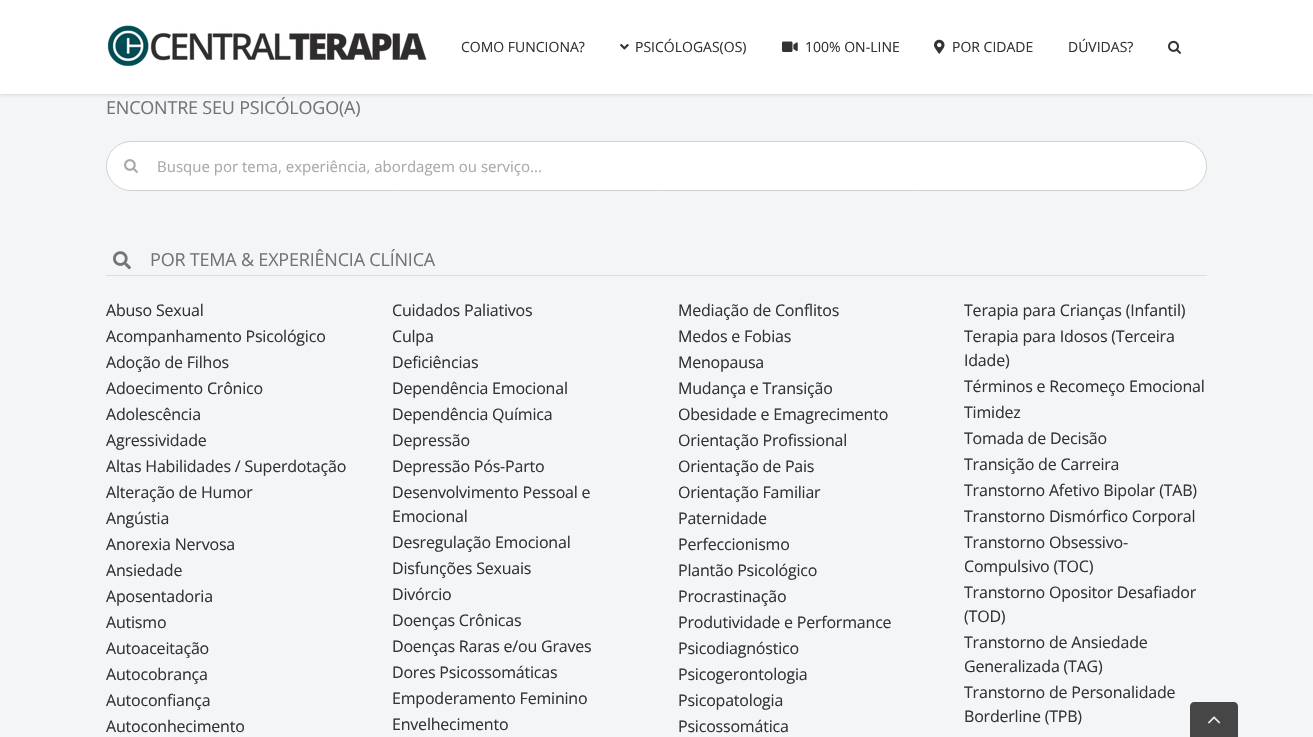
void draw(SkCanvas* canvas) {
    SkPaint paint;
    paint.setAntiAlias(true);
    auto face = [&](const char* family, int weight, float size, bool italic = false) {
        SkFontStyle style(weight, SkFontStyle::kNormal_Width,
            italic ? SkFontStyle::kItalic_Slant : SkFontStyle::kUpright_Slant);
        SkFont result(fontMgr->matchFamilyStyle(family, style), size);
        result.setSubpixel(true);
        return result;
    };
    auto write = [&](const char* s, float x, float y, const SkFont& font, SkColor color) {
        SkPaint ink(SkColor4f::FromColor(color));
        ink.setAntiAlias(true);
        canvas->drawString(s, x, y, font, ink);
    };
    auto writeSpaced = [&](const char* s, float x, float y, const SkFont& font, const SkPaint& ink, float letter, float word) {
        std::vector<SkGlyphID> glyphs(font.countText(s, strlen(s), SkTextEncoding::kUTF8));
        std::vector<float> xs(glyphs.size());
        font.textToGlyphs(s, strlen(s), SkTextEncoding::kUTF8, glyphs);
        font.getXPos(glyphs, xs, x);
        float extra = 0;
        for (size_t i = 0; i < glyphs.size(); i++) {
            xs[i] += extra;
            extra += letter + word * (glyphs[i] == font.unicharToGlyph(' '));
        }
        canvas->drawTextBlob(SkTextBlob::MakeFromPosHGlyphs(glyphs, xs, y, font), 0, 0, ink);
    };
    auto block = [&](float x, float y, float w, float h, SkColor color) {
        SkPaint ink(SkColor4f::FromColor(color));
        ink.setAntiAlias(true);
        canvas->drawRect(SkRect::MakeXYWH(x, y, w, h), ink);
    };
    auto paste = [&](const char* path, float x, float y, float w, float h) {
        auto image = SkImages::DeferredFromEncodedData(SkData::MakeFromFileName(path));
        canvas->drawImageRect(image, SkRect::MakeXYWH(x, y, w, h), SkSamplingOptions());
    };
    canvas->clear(SkColorSetRGB(243, 245, 247));
    paint.setColor(SkColorSetARGB(31, 0, 0, 0));
    paint.setMaskFilter(SkMaskFilter::MakeBlur(kNormal_SkBlurStyle, 1.5f));
    canvas->drawRect(SkRect::MakeXYWH(0, 1, 1313, 94), paint);
    paint.setMaskFilter(nullptr);
    block(0, 0, 1313, 94, SK_ColorWHITE);
    paste("pic1.png", 107, 25, 320, 42);
    auto kFont1 = face("Open Sans", 400, 14);
    write("COMO FUNCIONA?", 461, 52, kFont1, SkColorSetRGB(51, 51, 51));
    paste("pic2.png", 620, 44, 9, 6);
    write("PSICÓLOGAS(OS)", 635, 52, kFont1, SkColorSetRGB(51, 51, 51));
    paste("pic3.png", 782, 41, 16, 11);
    write("100% ON-LINE", 805, 52, kFont1, SkColorSetRGB(51, 51, 51));
    paste("pic4.png", 934, 39, 11, 15);
    write("POR CIDADE", 952, 52, kFont1, SkColorSetRGB(51, 51, 51));
    write("DÚVIDAS?", 1068, 52, kFont1, SkColorSetRGB(51, 51, 51));
    paste("pic5.png", 1168, 40, 13, 14);
    auto kFont2 = face("Open Sans", 400, 18);
    paint.setColor(SkColorSetRGB(116, 116, 116));
    writeSpaced("ENCONTRE SEU PSICÓLOGO(A)", 106, 114, kFont2, paint, -0.2f, 0);
    paint.setColor(SK_ColorWHITE);
    canvas->drawRoundRect(SkRect::MakeXYWH(106.5f, 141.5f, 1100, 49), 24.5f, 24.5f, paint);
    paint.setStyle(SkPaint::kStroke_Style);
    paint.setStrokeWidth(1);
    paint.setColor(SkColorSetRGB(210, 210, 210));
    canvas->drawRoundRect(SkRect::MakeXYWH(106.5f, 141.5f, 1100, 49), 24.5f, 24.5f, paint);
    paste("pic6.png", 124, 159, 14, 14);
    auto kFont3 = face("Open Sans", 400, 15);
    write("Busque por tema, experiência, abordagem ou serviço...", 157, 172, kFont3, SkColorSetRGB(170, 169, 169));
    block(106, 275, 1101, 1, SkColorSetRGB(224, 222, 222));
    paste("pic7.png", 113, 251, 18, 19);
    paint.setStyle(SkPaint::kFill_Style);
    paint.setColor(SkColorSetRGB(116, 116, 116));
    writeSpaced("POR TEMA & EXPERIÊNCIA CLÍNICA", 150, 266, kFont2, paint, -0.2f, 0);
    auto kFont4 = face("Open Sans", 400, 16);
    paint.setColor(SkColorSetRGB(51, 51, 51));
    writeSpaced("Abuso Sexual", 106, 316, kFont4, paint, -0.2f, 0);
    writeSpaced("Acompanhamento Psicológico", 106, 342, kFont4, paint, -0.2f, 0);
    writeSpaced("Adoção de Filhos", 106, 368, kFont4, paint, -0.2f, 0);
    writeSpaced("Adoecimento Crônico", 106, 394, kFont4, paint, -0.2f, 0);
    writeSpaced("Adolescência", 106, 420, kFont4, paint, -0.2f, 0);
    writeSpaced("Agressividade", 106, 446, kFont4, paint, -0.2f, 0);
    writeSpaced("Altas Habilidades / Superdotação", 106, 472, kFont4, paint, -0.2f, 0);
    writeSpaced("Alteração de Humor", 106, 498, kFont4, paint, -0.2f, 0);
    writeSpaced("Angústia", 106, 524, kFont4, paint, -0.2f, 0);
    writeSpaced("Anorexia Nervosa", 106, 550, kFont4, paint, -0.2f, 0);
    writeSpaced("Ansiedade", 106, 576, kFont4, paint, -0.2f, 0);
    writeSpaced("Aposentadoria", 106, 602, kFont4, paint, -0.2f, 0);
    writeSpaced("Autismo", 106, 628, kFont4, paint, -0.2f, 0);
    writeSpaced("Autoaceitação", 106, 654, kFont4, paint, -0.2f, 0);
    writeSpaced("Autocobrança", 106, 680, kFont4, paint, -0.2f, 0);
    writeSpaced("Autoconfiança", 106, 706, kFont4, paint, -0.2f, 0);
    writeSpaced("Autoconhecimento", 106, 732, kFont4, paint, -0.2f, 0);
    writeSpaced("Cuidados Paliativos", 392, 316, kFont4, paint, -0.2f, 0);
    writeSpaced("Culpa", 392, 342, kFont4, paint, -0.2f, 0);
    writeSpaced("Deficiências", 392, 368, kFont4, paint, -0.2f, 0);
    writeSpaced("Dependência Emocional", 392, 394, kFont4, paint, -0.2f, 0);
    writeSpaced("Dependência Química", 392, 420, kFont4, paint, -0.2f, 0);
    writeSpaced("Depressão", 392, 446, kFont4, paint, -0.2f, 0);
    writeSpaced("Depressão Pós-Parto", 392, 472, kFont4, paint, -0.2f, 0);
    writeSpaced("Desenvolvimento Pessoal e", 392, 498, kFont4, paint, -0.2f, 0);
    writeSpaced("Emocional", 392, 522, kFont4, paint, -0.2f, 0);
    writeSpaced("Desregulação Emocional", 392, 548, kFont4, paint, -0.2f, 0);
    writeSpaced("Disfunções Sexuais", 392, 574, kFont4, paint, -0.2f, 0);
    writeSpaced("Divórcio", 392, 600, kFont4, paint, -0.2f, 0);
    writeSpaced("Doenças Crônicas", 392, 626, kFont4, paint, -0.2f, 0);
    writeSpaced("Doenças Raras e/ou Graves", 392, 652, kFont4, paint, -0.2f, 0);
    writeSpaced("Dores Psicossomáticas", 392, 678, kFont4, paint, -0.2f, 0);
    writeSpaced("Empoderamento Feminino", 392, 704, kFont4, paint, -0.2f, 0);
    writeSpaced("Envelhecimento", 392, 730, kFont4, paint, -0.2f, 0);
    writeSpaced("Mediação de Conflitos", 678, 316, kFont4, paint, -0.2f, 0);
    writeSpaced("Medos e Fobias", 678, 342, kFont4, paint, -0.2f, 0);
    writeSpaced("Menopausa", 678, 368, kFont4, paint, -0.2f, 0);
    writeSpaced("Mudança e Transição", 678, 394, kFont4, paint, -0.2f, 0);
    writeSpaced("Obesidade e Emagrecimento", 678, 420, kFont4, paint, -0.2f, 0);
    writeSpaced("Orientação Profissional", 678, 446, kFont4, paint, -0.2f, 0);
    writeSpaced("Orientação de Pais", 678, 472, kFont4, paint, -0.2f, 0);
    writeSpaced("Orientação Familiar", 678, 498, kFont4, paint, -0.2f, 0);
    writeSpaced("Paternidade", 678, 524, kFont4, paint, -0.2f, 0);
    writeSpaced("Perfeccionismo", 678, 550, kFont4, paint, -0.2f, 0);
    writeSpaced("Plantão Psicológico", 678, 576, kFont4, paint, -0.2f, 0);
    writeSpaced("Procrastinação", 678, 602, kFont4, paint, -0.2f, 0);
    writeSpaced("Produtividade e Performance", 678, 628, kFont4, paint, -0.2f, 0);
    writeSpaced("Psicodiagnóstico", 678, 654, kFont4, paint, -0.2f, 0);
    writeSpaced("Psicogerontologia", 678, 680, kFont4, paint, -0.2f, 0);
    writeSpaced("Psicopatologia", 678, 706, kFont4, paint, -0.2f, 0);
    writeSpaced("Psicossomática", 678, 732, kFont4, paint, -0.2f, 0);
    writeSpaced("Terapia para Crianças (Infantil)", 964, 316, kFont4, paint, -0.2f, 0);
    writeSpaced("Terapia para Idosos (Terceira", 964, 342, kFont4, paint, -0.2f, 0);
    writeSpaced("Idade)", 964, 366, kFont4, paint, -0.2f, 0);
    writeSpaced("Términos e Recomeço Emocional", 964, 392, kFont4, paint, -0.2f, 0);
    writeSpaced("Timidez", 964, 418, kFont4, paint, -0.2f, 0);
    writeSpaced("Tomada de Decisão", 964, 444, kFont4, paint, -0.2f, 0);
    writeSpaced("Transição de Carreira", 964, 470, kFont4, paint, -0.2f, 0);
    writeSpaced("Transtorno Afetivo Bipolar (TAB)", 964, 496, kFont4, paint, -0.2f, 0);
    writeSpaced("Transtorno Dismórfico Corporal", 964, 522, kFont4, paint, -0.2f, 0);
    writeSpaced("Transtorno Obsessivo-", 964, 548, kFont4, paint, -0.2f, 0);
    writeSpaced("Compulsivo (TOC)", 964, 572, kFont4, paint, -0.2f, 0);
    writeSpaced("Transtorno Opositor Desafiador", 964, 598, kFont4, paint, -0.2f, 0);
    writeSpaced("(TOD)", 964, 622, kFont4, paint, -0.2f, 0);
    writeSpaced("Transtorno de Ansiedade", 964, 648, kFont4, paint, -0.2f, 0);
    writeSpaced("Generalizada (TAG)", 964, 672, kFont4, paint, -0.2f, 0);
    writeSpaced("Transtorno de Personalidade", 964, 698, kFont4, paint, -0.2f, 0);
    writeSpaced("Borderline (TPB)", 964, 722, kFont4, paint, -0.2f, 0);
    paint.setColor(SkColorSetARGB(230, 51, 51, 51));
    canvas->drawPath(SkPathBuilder().moveTo(1194, 702).lineTo(1234, 702).cubicTo(1236, 702, 1238, 704, 1238, 706).lineTo(1238, 737).lineTo(1190, 737).lineTo(1190, 706).cubicTo(1190, 704, 1192, 702, 1194, 702).close().detach(), paint);
    paste("pic8.png", 1208, 716, 13, 8);
}
